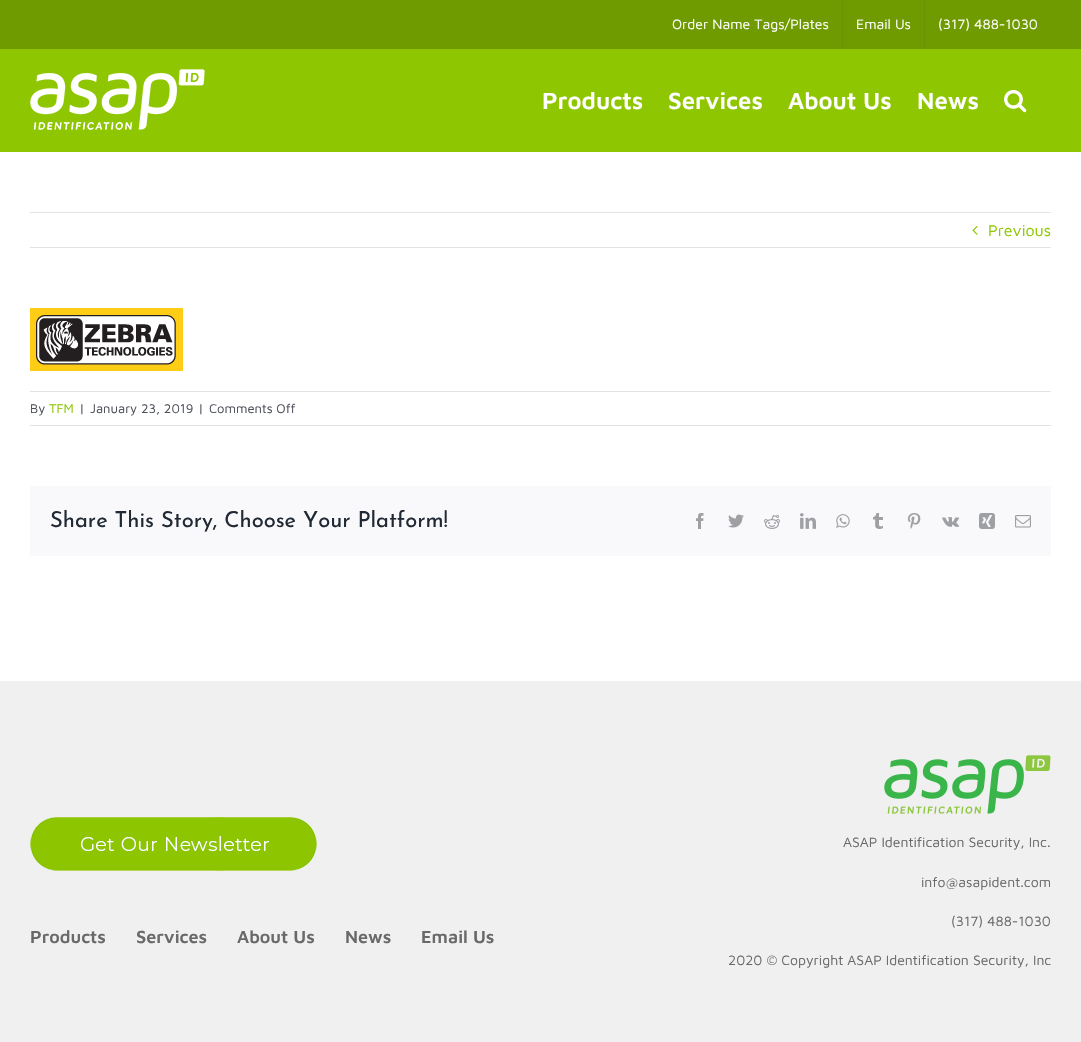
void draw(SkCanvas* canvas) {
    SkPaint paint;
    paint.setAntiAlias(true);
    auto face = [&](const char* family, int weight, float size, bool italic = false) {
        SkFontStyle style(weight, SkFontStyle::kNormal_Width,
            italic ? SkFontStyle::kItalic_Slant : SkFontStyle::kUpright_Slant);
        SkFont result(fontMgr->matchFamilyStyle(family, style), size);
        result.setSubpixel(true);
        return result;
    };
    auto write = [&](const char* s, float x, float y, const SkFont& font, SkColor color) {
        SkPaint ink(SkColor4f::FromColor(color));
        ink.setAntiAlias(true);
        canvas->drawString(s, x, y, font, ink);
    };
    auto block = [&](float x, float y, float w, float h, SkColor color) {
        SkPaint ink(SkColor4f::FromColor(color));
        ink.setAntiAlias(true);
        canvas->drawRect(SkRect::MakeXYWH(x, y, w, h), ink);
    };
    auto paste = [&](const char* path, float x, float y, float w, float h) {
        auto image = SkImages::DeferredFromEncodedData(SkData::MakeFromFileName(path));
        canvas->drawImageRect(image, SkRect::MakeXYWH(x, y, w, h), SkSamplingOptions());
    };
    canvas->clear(SK_ColorWHITE);
    block(0, 0, 1081, 49, SkColorSetRGB(112, 155, 0));
    auto kFont1 = face("Maven Pro", 400, 14);
    write("Order Name Tags/Plates", 672, 29, kFont1, SK_ColorWHITE);
    block(842, 0, 1, 48, SkColorSetRGB(105, 146, 0));
    write("Email Us", 856, 29, kFont1, SK_ColorWHITE);
    block(924, 0, 1, 48, SkColorSetRGB(105, 146, 0));
    write("(317) 488-1030", 938, 29, kFont1, SK_ColorWHITE);
    block(0, 49, 1081, 103, SkColorSetRGB(142, 198, 1));
    paste("pic1.png", 30, 69, 175, 61);
    auto kFont2 = face("Maven Pro", 600, 24);
    write("Products", 542, 109, kFont2, SK_ColorWHITE);
    write("Services", 668, 109, kFont2, SK_ColorWHITE);
    write("About Us", 788, 109, kFont2, SK_ColorWHITE);
    write("News", 917, 109, kFont2, SK_ColorWHITE);
    paste("pic2.png", 1004, 89, 23, 24);
    block(30, 212, 1021, 1, SkColorSetRGB(226, 226, 226));
    block(30, 247, 1021, 1, SkColorSetRGB(226, 226, 226));
    paste("pic3.png", 972, 226, 6, 9);
    auto kFont3 = face("Maven Pro", 400, 16);
    write("Previous", 988, 236, kFont3, SkColorSetRGB(142, 198, 1));
    paste("pic4.png", 30, 308, 153, 63);
    block(30, 391, 1021, 1, SkColorSetRGB(226, 226, 226));
    block(30, 425, 1021, 1, SkColorSetRGB(226, 226, 226));
    auto kFont4 = face("Maven Pro", 400, 13);
    write("By", 30, 413, kFont4, SkColorSetRGB(74, 78, 87));
    write("TFM", 49, 413, kFont4, SkColorSetRGB(142, 198, 1));
    write("|", 79, 413, kFont4, SkColorSetRGB(74, 78, 87));
    write("January 23, 2019", 90, 413, kFont4, SkColorSetRGB(74, 78, 87));
    write("|", 198, 413, kFont4, SkColorSetRGB(74, 78, 87));
    write("Comments Off", 209, 413, kFont4, SkColorSetRGB(74, 78, 87));
    block(30, 486, 1021, 70, SkColorSetRGB(249, 249, 251));
    auto kFont5 = face("Josefin Sans", 400, 22);
    write("Share This Story, Choose Your Platform!", 50, 527, kFont5, SkColorSetRGB(33, 41, 52));
    paste("pic5.png", 696, 513, 8, 16);
    paste("pic6.png", 728, 514, 16, 14);
    paste("pic7.png", 764, 515, 16, 14);
    paste("pic8.png", 800, 513, 16, 16);
    paste("pic9.png", 836, 514, 14, 14);
    paste("pic10.png", 873, 513, 10, 16);
    paste("pic11.png", 907, 513, 14, 16);
    paste("pic12.png", 942, 517, 18, 10);
    paste("pic13.png", 979, 513, 16, 16);
    paste("pic14.png", 1015, 515, 16, 13);
    block(0, 681, 1081, 361, SkColorSetRGB(240, 240, 240));
    paste("pic15.png", 30, 817, 287, 54);
    auto kFont6 = face("Maven Pro", 600, 18);
    write("Products", 30, 943, kFont6, SkColorSetRGB(105, 105, 105));
    write("Services", 136, 943, kFont6, SkColorSetRGB(105, 105, 105));
    write("About Us", 237, 943, kFont6, SkColorSetRGB(105, 105, 105));
    write("News", 345, 943, kFont6, SkColorSetRGB(105, 105, 105));
    write("Email Us", 421, 943, kFont6, SkColorSetRGB(105, 105, 105));
    paste("pic16.png", 884, 755, 167, 59);
    write("ASAP Identification Security, Inc.", 843, 847, kFont1, SkColorSetRGB(105, 105, 105));
    write("info@asapident.com", 921, 887, kFont1, SkColorSetRGB(105, 105, 105));
    write("(317) 488-1030", 951, 926, kFont1, SkColorSetRGB(105, 105, 105));
    write("2020 © Copyright ASAP Identification Security, Inc", 728, 965, kFont1, SkColorSetRGB(105, 105, 105));
}
